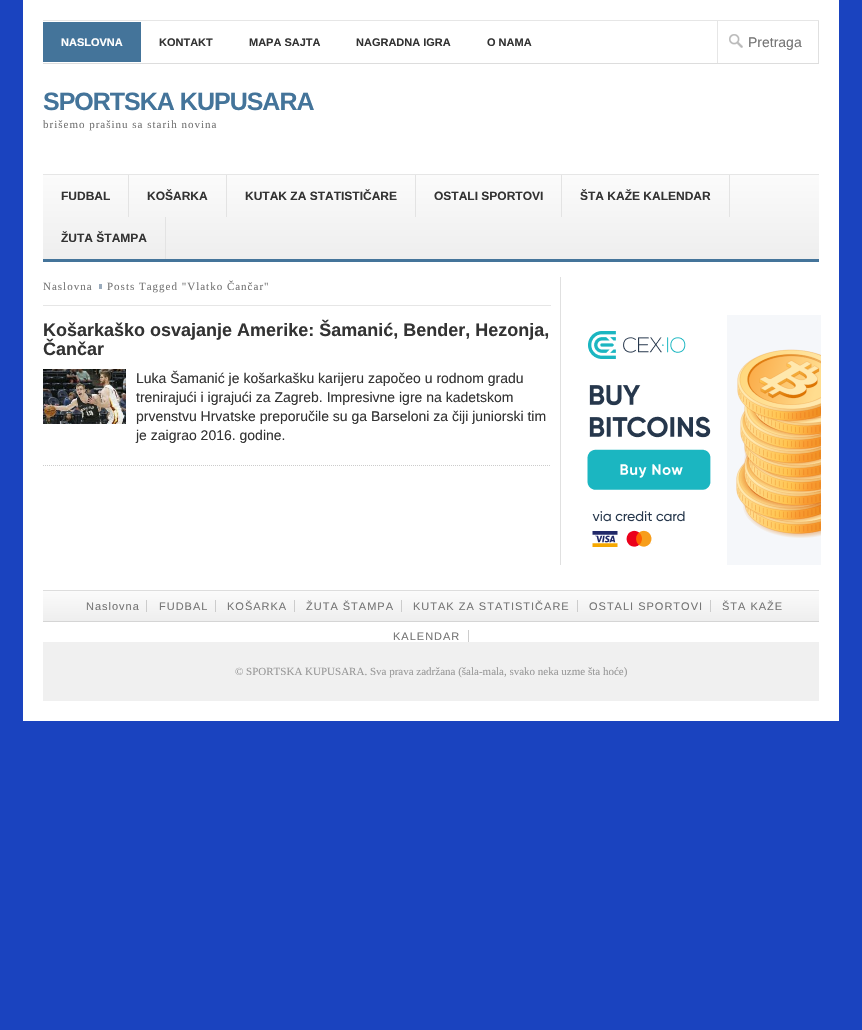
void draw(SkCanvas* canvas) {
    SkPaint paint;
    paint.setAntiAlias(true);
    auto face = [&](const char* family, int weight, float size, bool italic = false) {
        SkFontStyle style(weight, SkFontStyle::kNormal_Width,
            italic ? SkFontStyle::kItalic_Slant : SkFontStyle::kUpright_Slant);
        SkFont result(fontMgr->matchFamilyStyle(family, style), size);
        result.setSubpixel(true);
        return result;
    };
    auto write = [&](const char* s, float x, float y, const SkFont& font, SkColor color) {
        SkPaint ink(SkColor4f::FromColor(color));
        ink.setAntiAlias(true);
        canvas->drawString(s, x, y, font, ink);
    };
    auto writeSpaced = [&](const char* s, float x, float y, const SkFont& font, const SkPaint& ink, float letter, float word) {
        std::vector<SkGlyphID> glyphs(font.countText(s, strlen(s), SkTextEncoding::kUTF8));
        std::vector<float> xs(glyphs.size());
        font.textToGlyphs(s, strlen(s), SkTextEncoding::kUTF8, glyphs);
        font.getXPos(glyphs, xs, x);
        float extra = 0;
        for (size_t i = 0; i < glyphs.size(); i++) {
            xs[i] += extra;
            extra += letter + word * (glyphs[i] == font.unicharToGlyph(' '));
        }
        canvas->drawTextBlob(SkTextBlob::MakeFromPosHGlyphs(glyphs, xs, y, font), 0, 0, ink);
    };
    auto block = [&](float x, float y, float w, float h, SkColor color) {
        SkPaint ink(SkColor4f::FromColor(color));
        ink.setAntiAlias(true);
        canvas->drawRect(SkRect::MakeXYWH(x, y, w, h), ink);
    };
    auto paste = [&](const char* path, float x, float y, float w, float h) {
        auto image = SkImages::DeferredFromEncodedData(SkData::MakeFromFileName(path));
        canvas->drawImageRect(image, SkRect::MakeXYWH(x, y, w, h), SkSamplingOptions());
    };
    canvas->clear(SkColorSetRGB(26, 67, 191));
    block(23, 0, 816, 721, SK_ColorWHITE);
    block(43, 20, 776, 1, SkColorSetRGB(230, 230, 230));
    block(43, 63, 776, 1, SkColorSetRGB(221, 221, 221));
    block(43, 22, 98, 40, SkColorSetRGB(68, 116, 154));
    auto kFont1 = face("Liberation Sans", 700, 11);
    write("NASLOVNA", 61, 46, kFont1, SK_ColorWHITE);
    write("KONTAKT", 159, 46, kFont1, SkColorSetRGB(51, 51, 51));
    write("MAPA SAJTA", 249, 46, kFont1, SkColorSetRGB(51, 51, 51));
    write("NAGRADNA IGRA", 356, 46, kFont1, SkColorSetRGB(51, 51, 51));
    write("O NAMA", 487, 46, kFont1, SkColorSetRGB(51, 51, 51));
    paste("pic1.png", 729, 34, 14, 14);
    block(818, 21, 1, 42, SkColorSetRGB(224, 224, 224));
    block(717, 21, 1, 42, SkColorSetRGB(230, 230, 230));
    auto kFont2 = face("Liberation Sans", 400, 14);
    write("Pretraga", 748, 47, kFont2, SkColorSetRGB(117, 117, 117));
    auto kFont3 = face("Liberation Sans", 700, 25);
    paint.setColor(SkColorSetRGB(68, 116, 154));
    writeSpaced("SPORTSKA KUPUSARA", 43, 110, kFont3, paint, -1, 0);
    auto kFont4 = face("Liberation Serif", 400, 11);
    paint.setColor(SkColorSetRGB(117, 117, 117));
    writeSpaced("brišemo prašinu sa starih novina", 43, 128, kFont4, paint, 1, 0);
    {
        const SkColor colors[] = {SkColorSetRGB(251, 251, 251), SkColorSetRGB(238, 238, 238)};
        const float stops[] = {0, 1};
        const SkPoint ends[] = {{431, 175}, {431, 259}};
        paint.setShader(SkGradientShader::MakeLinear(ends, colors, stops, 2, SkTileMode::kClamp));
        paint.setAlpha(255);
    }
    canvas->drawRect(SkRect::MakeXYWH(43, 175, 776, 84), paint);
    block(43, 174, 776, 1, SkColorSetRGB(230, 230, 230));
    block(43, 259, 776, 3, SkColorSetRGB(68, 116, 154));
    block(128, 175, 1, 42, SkColorSetRGB(227, 227, 227));
    auto kFont5 = face("Liberation Sans", 700, 12);
    write("FUDBAL", 61, 200, kFont5, SkColorSetRGB(51, 51, 51));
    block(226, 175, 1, 42, SkColorSetRGB(227, 227, 227));
    write("KOŠARKA", 147, 200, kFont5, SkColorSetRGB(51, 51, 51));
    block(415, 175, 1, 42, SkColorSetRGB(227, 227, 227));
    write("KUTAK ZA STATISTIČARE", 245, 200, kFont5, SkColorSetRGB(51, 51, 51));
    block(561, 175, 1, 42, SkColorSetRGB(227, 227, 227));
    write("OSTALI SPORTOVI", 434, 200, kFont5, SkColorSetRGB(51, 51, 51));
    block(729, 175, 1, 42, SkColorSetRGB(227, 227, 227));
    write("ŠTA KAŽE KALENDAR", 580, 200, kFont5, SkColorSetRGB(51, 51, 51));
    block(165, 217, 1, 42, SkColorSetRGB(227, 227, 227));
    write("ŽUTA ŠTAMPA", 61, 242, kFont5, SkColorSetRGB(51, 51, 51));
    block(560, 277, 1, 288, SkColorSetRGB(224, 224, 224));
    block(43, 305, 508, 1, SkColorSetRGB(230, 230, 230));
    paint.setShader(nullptr);
    paint.setColor(SkColorSetRGB(117, 117, 117));
    writeSpaced("Naslovna", 43, 290, kFont4, paint, 1, 0);
    block(99, 284, 3, 5, SkColorSetRGB(154, 171, 188));
    writeSpaced("Posts Tagged \"Vlatko Čančar\"", 107, 290, kFont4, paint, 1, 0);
    paint.setStyle(SkPaint::kStroke_Style);
    paint.setStrokeWidth(1);
    paint.setColor(SkColorSetRGB(204, 204, 204));
    paint.setPathEffect(SkDashPathEffect::Make({{1, 1}}, 0));
    canvas->drawPath(SkPathBuilder().moveTo(43, 465.5f).lineTo(551, 465.5f).detach(), paint);
    paint.setPathEffect(nullptr);
    auto kFont6 = face("Liberation Sans", 700, 18);
    write("Košarkaško osvajanje Amerike: Šamanić, Bender, Hezonja,", 43, 336, kFont6, SkColorSetRGB(51, 51, 51));
    write("Čančar", 43, 355, kFont6, SkColorSetRGB(51, 51, 51));
    paste("pic2.png", 43, 369, 83, 55);
    write("Luka Šamanić je košarkašku karijeru započeo u rodnom gradu", 136, 383, kFont2, SkColorSetRGB(51, 51, 51));
    write("trenirajući i igrajući za Zagreb. Impresivne igre na kadetskom", 136, 402, kFont2, SkColorSetRGB(51, 51, 51));
    write("prvenstvu Hrvatske preporučile su ga Barseloni za čiji juniorski tim", 136, 421, kFont2, SkColorSetRGB(51, 51, 51));
    write("je zaigrao 2016. godine.", 136, 440, kFont2, SkColorSetRGB(51, 51, 51));
    paste("pic3.png", 587, 315, 234, 250);
    paint.setStyle(SkPaint::kFill_Style);
    {
        const SkColor colors[] = {SkColorSetRGB(251, 251, 251), SkColorSetRGB(238, 238, 238)};
        const float stops[] = {0, 1};
        const SkPoint ends[] = {{431, 591}, {431, 621}};
        paint.setShader(SkGradientShader::MakeLinear(ends, colors, stops, 2, SkTileMode::kClamp));
        paint.setAlpha(255);
    }
    canvas->drawRect(SkRect::MakeXYWH(43, 591, 776, 30), paint);
    block(43, 590, 776, 1, SkColorSetRGB(221, 221, 221));
    block(43, 621, 776, 1, SkColorSetRGB(213, 213, 213));
    auto kFont7 = face("Liberation Sans", 400, 11);
    paint.setShader(nullptr);
    paint.setColor(SkColorSetRGB(117, 117, 117));
    writeSpaced("Naslovna", 86, 610, kFont7, paint, 1, 0);
    block(146, 600, 1, 12, SkColorSetRGB(204, 204, 204));
    writeSpaced("FUDBAL", 159, 610, kFont7, paint, 1, 0);
    block(215, 600, 1, 12, SkColorSetRGB(204, 204, 204));
    writeSpaced("KOŠARKA", 227, 610, kFont7, paint, 1, 0);
    block(294, 600, 1, 12, SkColorSetRGB(204, 204, 204));
    writeSpaced("ŽUTA ŠTAMPA", 306, 610, kFont7, paint, 1, 0);
    block(401, 600, 1, 12, SkColorSetRGB(204, 204, 204));
    writeSpaced("KUTAK ZA STATISTIČARE", 413, 610, kFont7, paint, 1, 0);
    block(577, 600, 1, 12, SkColorSetRGB(204, 204, 204));
    writeSpaced("OSTALI SPORTOVI", 589, 610, kFont7, paint, 1, 0);
    block(710, 600, 1, 12, SkColorSetRGB(204, 204, 204));
    writeSpaced("ŠTA KAŽE", 722, 610, kFont7, paint, 1, 0);
    writeSpaced("KALENDAR", 393, 640, kFont7, paint, 1, 0);
    block(468, 630, 1, 12, SkColorSetRGB(204, 204, 204));
    block(43, 642, 776, 59, SkColorSetRGB(240, 240, 240));
    write("© SPORTSKA KUPUSARA. Sva prava zadržana (šala-mala, svako neka uzme šta hoće)", 235, 675, kFont4, SkColorSetRGB(153, 153, 153));
}
